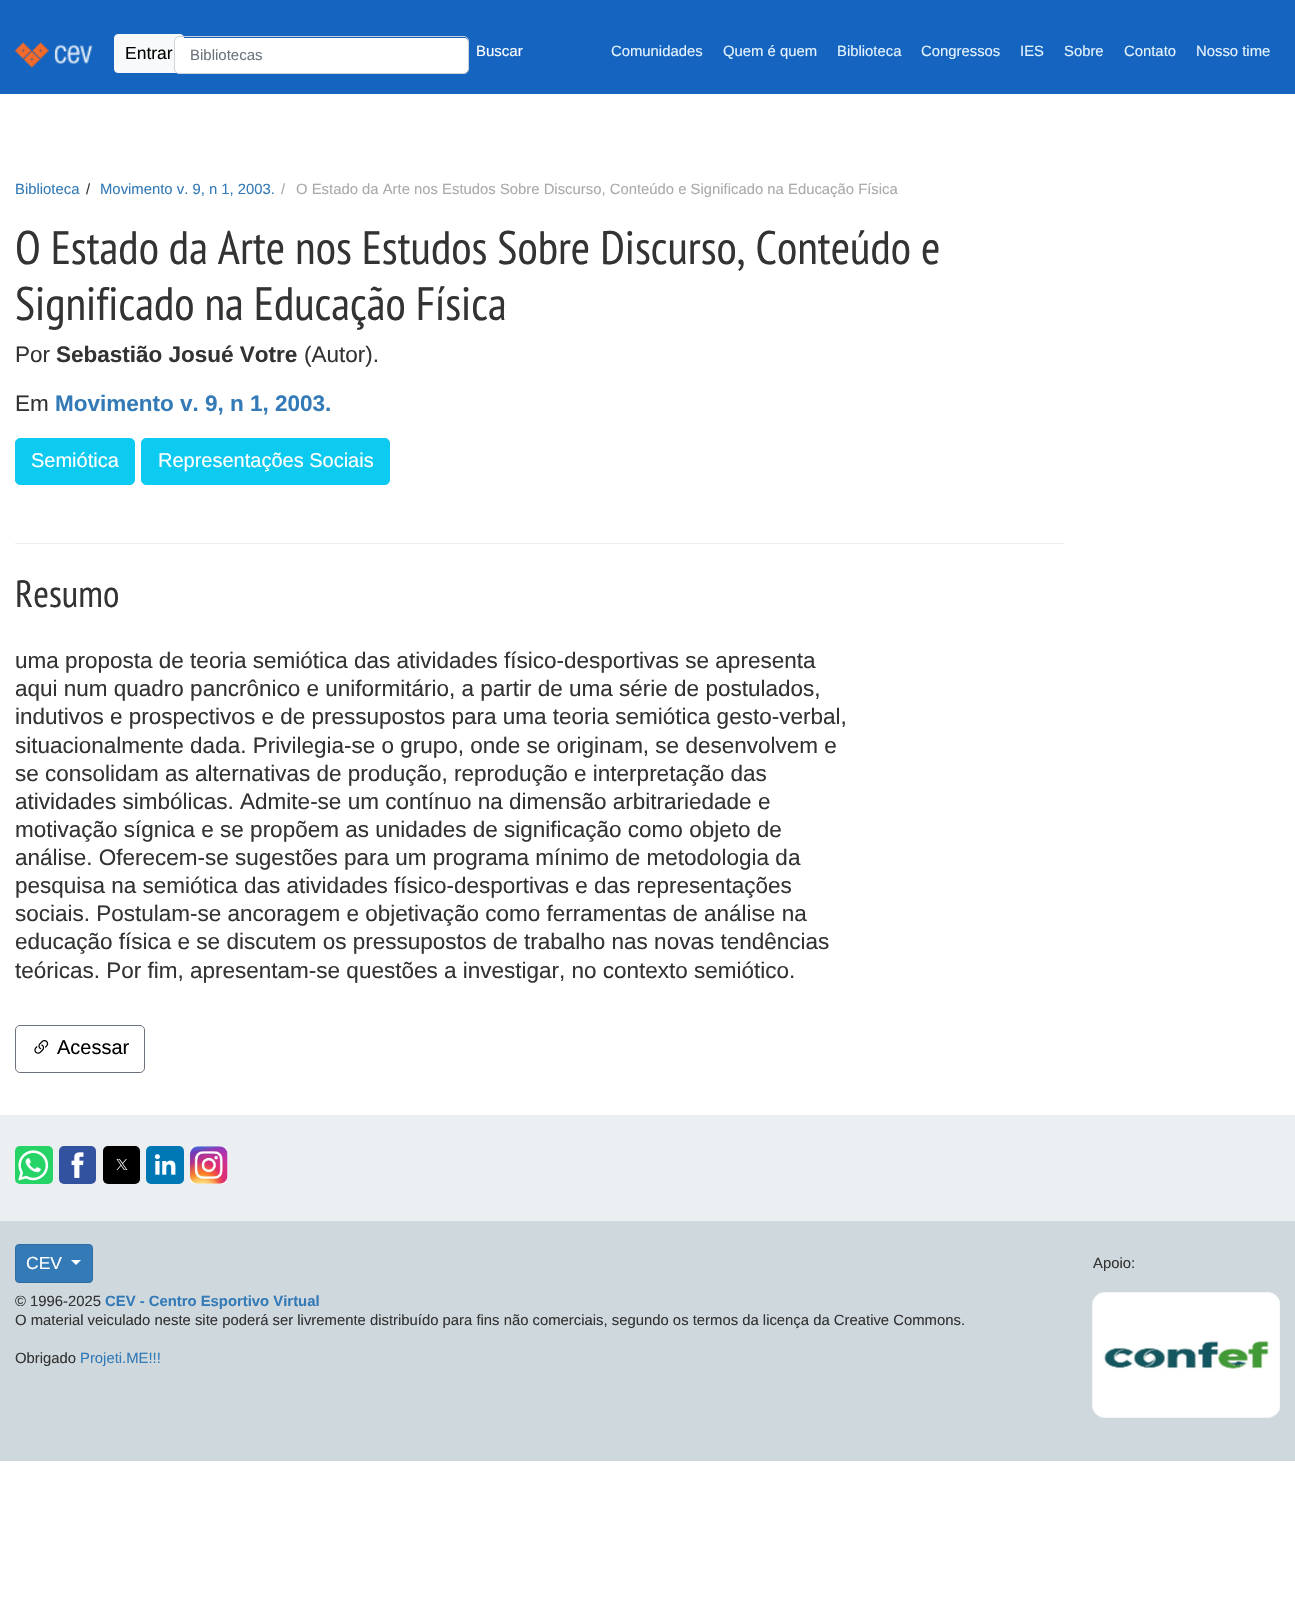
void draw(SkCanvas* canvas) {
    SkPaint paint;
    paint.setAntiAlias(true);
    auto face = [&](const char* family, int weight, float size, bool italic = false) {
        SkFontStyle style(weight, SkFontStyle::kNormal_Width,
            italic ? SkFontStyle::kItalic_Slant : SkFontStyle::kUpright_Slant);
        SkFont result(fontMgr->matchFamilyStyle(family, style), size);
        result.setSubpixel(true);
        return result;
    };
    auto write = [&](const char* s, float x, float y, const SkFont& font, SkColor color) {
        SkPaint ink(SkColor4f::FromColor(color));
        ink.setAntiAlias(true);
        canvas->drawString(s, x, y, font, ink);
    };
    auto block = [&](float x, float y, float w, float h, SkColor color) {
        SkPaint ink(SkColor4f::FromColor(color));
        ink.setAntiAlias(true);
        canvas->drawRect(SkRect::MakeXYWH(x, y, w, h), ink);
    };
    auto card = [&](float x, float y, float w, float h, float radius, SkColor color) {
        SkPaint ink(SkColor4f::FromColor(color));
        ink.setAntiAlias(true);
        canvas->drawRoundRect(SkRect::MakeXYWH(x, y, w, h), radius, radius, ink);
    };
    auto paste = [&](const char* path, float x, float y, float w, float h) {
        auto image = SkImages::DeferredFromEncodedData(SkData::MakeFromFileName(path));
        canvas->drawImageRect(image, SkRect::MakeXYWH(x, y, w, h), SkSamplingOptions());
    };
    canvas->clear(SK_ColorWHITE);
    block(0, 0, 1295, 94, SkColorSetRGB(21, 101, 192));
    paste("pic1.png", 15, 42, 78, 26);
    paint.setColor(SkColorSetRGB(248, 249, 250));
    canvas->drawRoundRect(SkRect::MakeXYWH(114.5f, 34.5f, 69, 38), 3.5f, 3.5f, paint);
    paint.setStyle(SkPaint::kStroke_Style);
    paint.setStrokeWidth(1);
    canvas->drawRoundRect(SkRect::MakeXYWH(114.5f, 34.5f, 69, 38), 3.5f, 3.5f, paint);
    auto kFont1 = face("Liberation Sans", 400, 17.5f);
    write("Entrar", 125, 59, kFont1, SK_ColorBLACK);
    card(175, 38, 293, 35, 4, SK_ColorWHITE);
    paint.setColor(SkColorSetRGB(206, 212, 218));
    canvas->drawRoundRect(SkRect::MakeXYWH(174.5f, 36.5f, 294, 37), 4.5f, 4.5f, paint);
    auto kFont2 = face("Liberation Sans", 400, 15);
    write("Bibliotecas", 190, 60, kFont2, SkColorSetRGB(108, 117, 125));
    write("Buscar", 476, 56, kFont2, SK_ColorWHITE);
    auto kFont3 = face("Liberation Sans", 400, 14.85f);
    write("Comunidades", 611, 56, kFont3, SkColorSetRGB(227, 242, 253));
    write("Quem é quem", 723, 56, kFont3, SkColorSetRGB(227, 242, 253));
    write("Biblioteca", 837, 56, kFont3, SkColorSetRGB(227, 242, 253));
    write("Congressos", 921, 56, kFont3, SkColorSetRGB(227, 242, 253));
    write("IES", 1020, 56, kFont3, SkColorSetRGB(227, 242, 253));
    write("Sobre", 1064, 56, kFont3, SkColorSetRGB(227, 242, 253));
    write("Contato", 1124, 56, kFont3, SkColorSetRGB(227, 242, 253));
    write("Nosso time", 1196, 56, kFont3, SkColorSetRGB(227, 242, 253));
    block(15, 543, 1049, 1, SkColorSetRGB(238, 238, 238));
    write("Biblioteca", 15, 194, kFont3, SkColorSetRGB(51, 122, 183));
    write("/", 86, 194, kFont3, SkColorSetRGB(51, 51, 51));
    write("Movimento v. 9, n 1, 2003.", 100, 194, kFont3, SkColorSetRGB(51, 122, 183));
    write("/", 281, 194, kFont3, SkColorSetRGB(170, 170, 170));
    write("O Estado da Arte nos Estudos Sobre Discurso, Conteúdo e Significado na Educação Física", 296, 194, kFont3, SkColorSetRGB(170, 170, 170));
    auto kFont4 = face("PT Sans Narrow", 400, 46.9f);
    write("O Estado da Arte nos Estudos Sobre Discurso, Conteúdo e", 15, 264, kFont4, SkColorSetRGB(51, 51, 51));
    write("Significado na Educação Física", 15, 320, kFont4, SkColorSetRGB(51, 51, 51));
    auto kFont5 = face("Liberation Sans", 400, 22.5f);
    write("Por", 15, 362, kFont5, SkColorSetRGB(51, 51, 51));
    auto kFont6 = face("Liberation Sans", 700, 22.5f);
    write("Sebastião Josué Votre", 56, 362, kFont6, SkColorSetRGB(51, 51, 51));
    write("(Autor).", 304, 362, kFont5, SkColorSetRGB(51, 51, 51));
    write("Em", 15, 411, kFont5, SkColorSetRGB(51, 51, 51));
    write("Movimento v. 9, n 1, 2003.", 55, 411, kFont6, SkColorSetRGB(51, 122, 183));
    paint.setStyle(SkPaint::kFill_Style);
    paint.setColor(SkColorSetRGB(13, 202, 240));
    canvas->drawRoundRect(SkRect::MakeXYWH(15.5f, 438.5f, 119, 46), 4.5f, 4.5f, paint);
    paint.setStyle(SkPaint::kStroke_Style);
    canvas->drawRoundRect(SkRect::MakeXYWH(15.5f, 438.5f, 119, 46), 4.5f, 4.5f, paint);
    auto kFont7 = face("Liberation Sans", 400, 20);
    write("Semiótica", 31, 467, kFont7, SK_ColorWHITE);
    paint.setStyle(SkPaint::kFill_Style);
    canvas->drawRoundRect(SkRect::MakeXYWH(141.5f, 438.5f, 248, 46), 4.5f, 4.5f, paint);
    paint.setStyle(SkPaint::kStroke_Style);
    canvas->drawRoundRect(SkRect::MakeXYWH(141.5f, 438.5f, 248, 46), 4.5f, 4.5f, paint);
    write("Representações Sociais", 158, 467, kFont7, SK_ColorWHITE);
    auto kFont8 = face("PT Sans Narrow", 400, 38);
    write("Resumo", 15, 607, kFont8, SkColorSetRGB(51, 51, 51));
    write("uma proposta de teoria semiótica das atividades físico-desportivas se apresenta", 15, 668, kFont5, SkColorSetRGB(51, 51, 51));
    write("aqui num quadro pancrônico e uniformitário, a partir de uma série de postulados,", 15, 696, kFont5, SkColorSetRGB(51, 51, 51));
    write("indutivos e prospectivos e de pressupostos para uma teoria semiótica gesto-verbal,", 15, 724, kFont5, SkColorSetRGB(51, 51, 51));
    write("situacionalmente dada. Privilegia-se o grupo, onde se originam, se desenvolvem e", 15, 753, kFont5, SkColorSetRGB(51, 51, 51));
    write("se consolidam as alternativas de produção, reprodução e interpretação das", 15, 781, kFont5, SkColorSetRGB(51, 51, 51));
    write("atividades simbólicas. Admite-se um contínuo na dimensão arbitrariedade e", 15, 809, kFont5, SkColorSetRGB(51, 51, 51));
    write("motivação sígnica e se propõem as unidades de significação como objeto de", 15, 837, kFont5, SkColorSetRGB(51, 51, 51));
    write("análise. Oferecem-se sugestões para um programa mínimo de metodologia da", 15, 865, kFont5, SkColorSetRGB(51, 51, 51));
    write("pesquisa na semiótica das atividades físico-desportivas e das representações", 15, 893, kFont5, SkColorSetRGB(51, 51, 51));
    write("sociais. Postulam-se ancoragem e objetivação como ferramentas de análise na", 15, 921, kFont5, SkColorSetRGB(51, 51, 51));
    write("educação física e se discutem os pressupostos de trabalho nas novas tendências", 15, 949, kFont5, SkColorSetRGB(51, 51, 51));
    write("teóricas. Por fim, apresentam-se questões a investigar, no contexto semiótico.", 15, 978, kFont5, SkColorSetRGB(51, 51, 51));
    paint.setColor(SkColorSetRGB(108, 117, 125));
    canvas->drawRoundRect(SkRect::MakeXYWH(15.5f, 1025.5f, 129, 47), 4.5f, 4.5f, paint);
    paste("pic2.png", 34, 1040, 15, 14);
    write("Acessar", 57, 1054, kFont7, SK_ColorBLACK);
    block(0, 1115, 1295, 106, SkColorSetRGB(236, 239, 241));
    card(15, 1146, 38, 38, 5, SkColorSetRGB(37, 211, 102));
    paste("pic3.png", 18, 1150, 31, 31);
    card(59, 1146, 37, 38, 5, SkColorSetRGB(50, 82, 159));
    paste("pic4.png", 71, 1152, 13, 26);
    card(103, 1146, 37, 38, 5, SK_ColorBLACK);
    paste("pic5.png", 116, 1159, 12, 11);
    card(146, 1146, 38, 38, 5, SkColorSetRGB(0, 119, 181));
    paste("pic6.png", 154, 1154, 22, 21);
    paste("pic7.png", 190, 1146, 38, 38);
    block(0, 1221, 1295, 240, SkColorSetRGB(207, 216, 220));
    paint.setStyle(SkPaint::kFill_Style);
    paint.setColor(SkColorSetRGB(51, 122, 183));
    canvas->drawRoundRect(SkRect::MakeXYWH(15.5f, 1244.5f, 77, 38), 3.5f, 3.5f, paint);
    paint.setStyle(SkPaint::kStroke_Style);
    paint.setColor(SkColorSetRGB(46, 109, 164));
    canvas->drawRoundRect(SkRect::MakeXYWH(15.5f, 1244.5f, 77, 38), 3.5f, 3.5f, paint);
    write("CEV", 26, 1269, kFont1, SK_ColorWHITE);
    paint.setStyle(SkPaint::kFill_Style);
    paint.setColor(SK_ColorWHITE);
    canvas->drawPath(SkPathBuilder().moveTo(71, 1260).lineTo(81, 1260).lineTo(76, 1265).close().detach(), paint);
    write("Apoio:", 1093, 1268, kFont3, SkColorSetRGB(51, 51, 51));
    paste("pic8.png", 1092, 1292, 188, 126);
    paste("pic9.png", 1092, 1292, 188, 126);
    write("© 1996-2025", 15, 1306, kFont3, SkColorSetRGB(51, 51, 51));
    auto kFont9 = face("Liberation Sans", 700, 14.85f);
    write("CEV - Centro Esportivo Virtual", 105, 1306, kFont9, SkColorSetRGB(51, 122, 183));
    write("O material veiculado neste site poderá ser livremente distribuído para fins não comerciais, segundo os termos da licença da Creative Commons.", 15, 1325, kFont3, SkColorSetRGB(51, 51, 51));
    write("Obrigado", 15, 1363, kFont3, SkColorSetRGB(51, 51, 51));
    write("Projeti.ME!!!", 80, 1363, kFont3, SkColorSetRGB(51, 122, 183));
}
